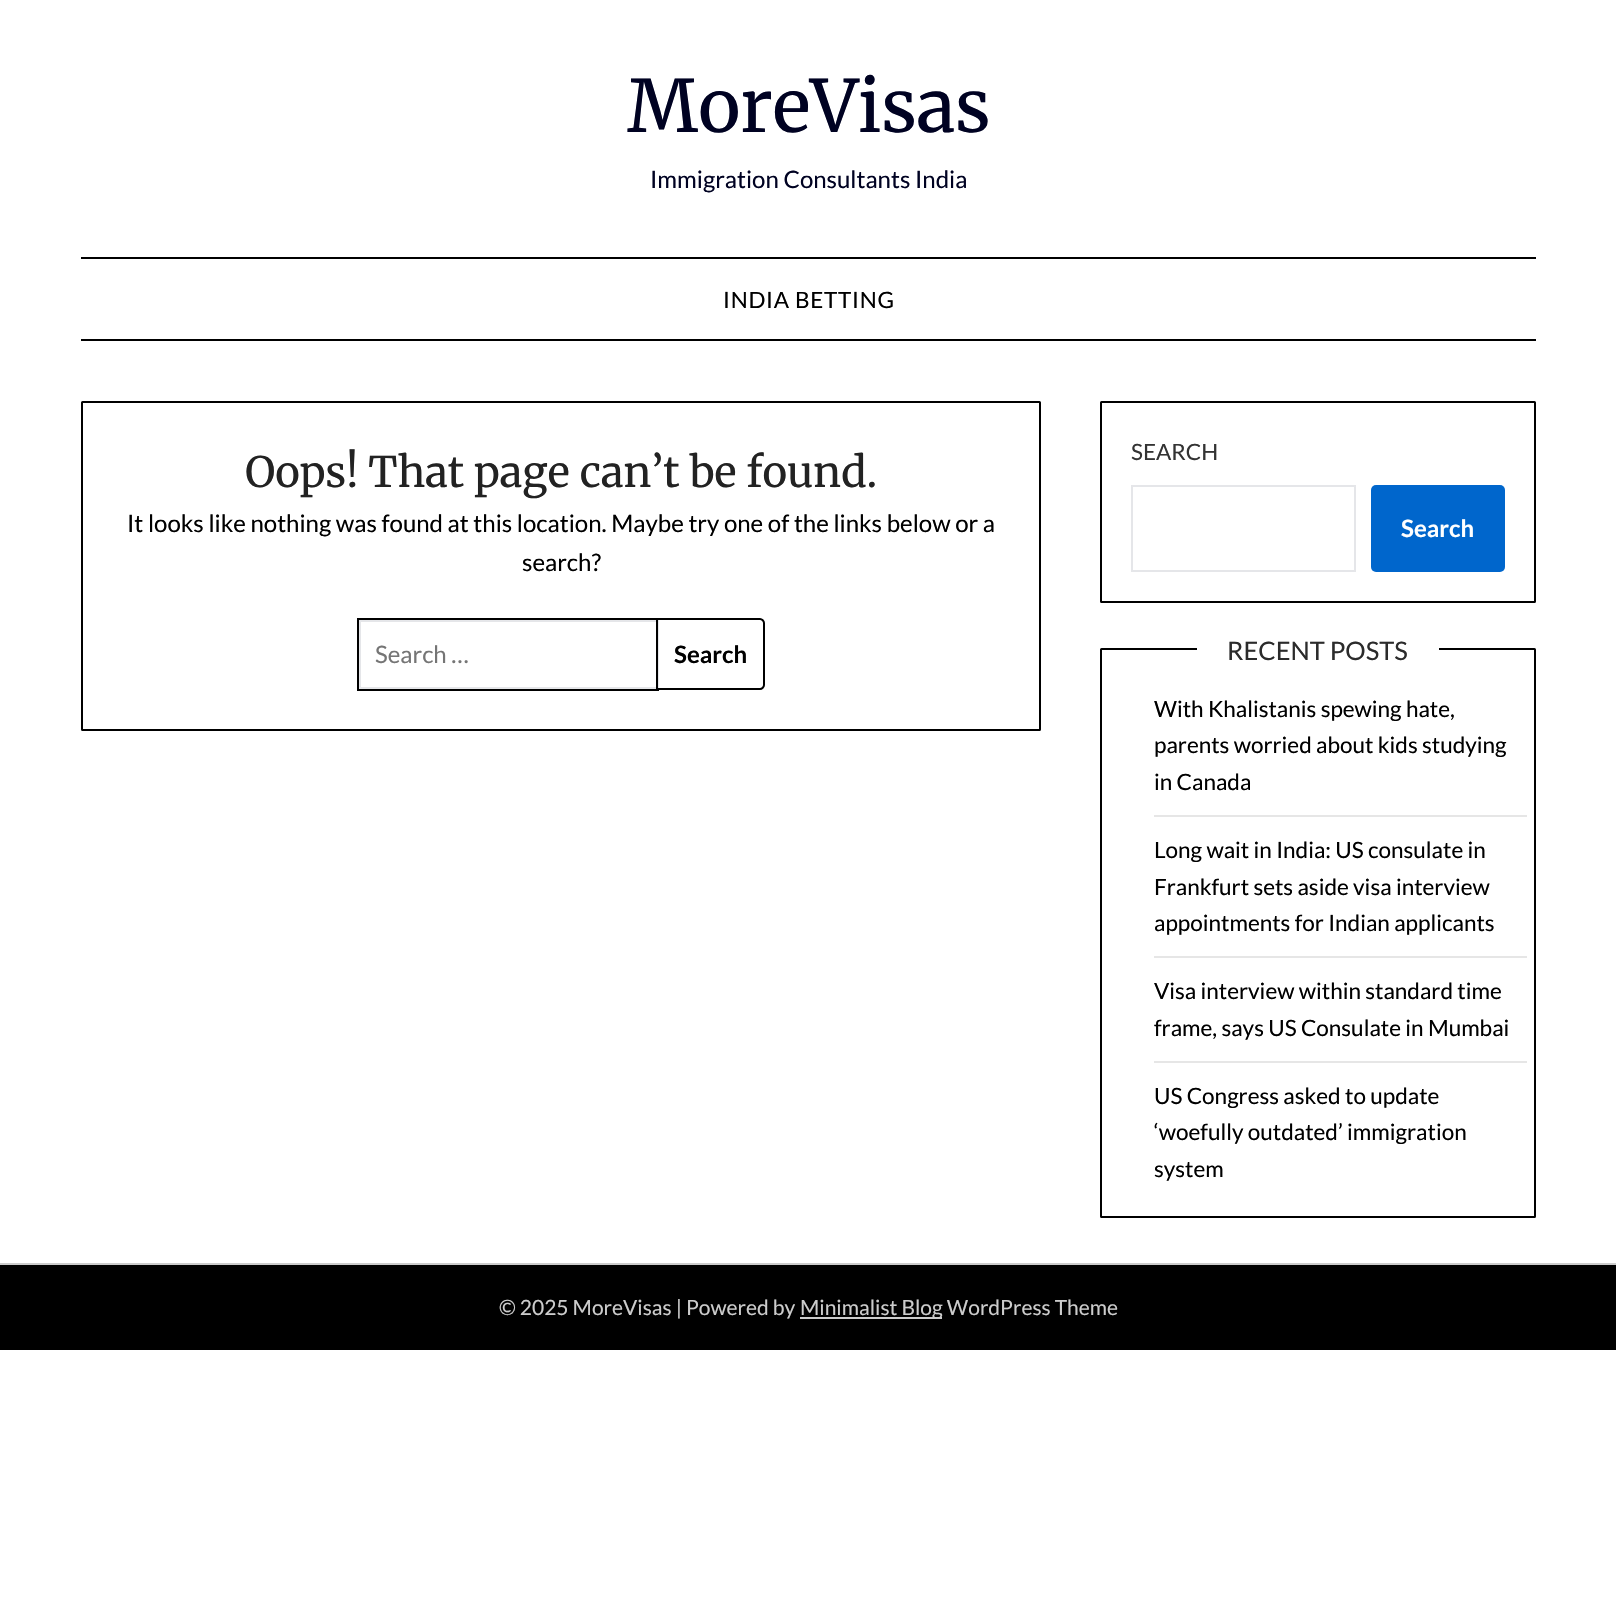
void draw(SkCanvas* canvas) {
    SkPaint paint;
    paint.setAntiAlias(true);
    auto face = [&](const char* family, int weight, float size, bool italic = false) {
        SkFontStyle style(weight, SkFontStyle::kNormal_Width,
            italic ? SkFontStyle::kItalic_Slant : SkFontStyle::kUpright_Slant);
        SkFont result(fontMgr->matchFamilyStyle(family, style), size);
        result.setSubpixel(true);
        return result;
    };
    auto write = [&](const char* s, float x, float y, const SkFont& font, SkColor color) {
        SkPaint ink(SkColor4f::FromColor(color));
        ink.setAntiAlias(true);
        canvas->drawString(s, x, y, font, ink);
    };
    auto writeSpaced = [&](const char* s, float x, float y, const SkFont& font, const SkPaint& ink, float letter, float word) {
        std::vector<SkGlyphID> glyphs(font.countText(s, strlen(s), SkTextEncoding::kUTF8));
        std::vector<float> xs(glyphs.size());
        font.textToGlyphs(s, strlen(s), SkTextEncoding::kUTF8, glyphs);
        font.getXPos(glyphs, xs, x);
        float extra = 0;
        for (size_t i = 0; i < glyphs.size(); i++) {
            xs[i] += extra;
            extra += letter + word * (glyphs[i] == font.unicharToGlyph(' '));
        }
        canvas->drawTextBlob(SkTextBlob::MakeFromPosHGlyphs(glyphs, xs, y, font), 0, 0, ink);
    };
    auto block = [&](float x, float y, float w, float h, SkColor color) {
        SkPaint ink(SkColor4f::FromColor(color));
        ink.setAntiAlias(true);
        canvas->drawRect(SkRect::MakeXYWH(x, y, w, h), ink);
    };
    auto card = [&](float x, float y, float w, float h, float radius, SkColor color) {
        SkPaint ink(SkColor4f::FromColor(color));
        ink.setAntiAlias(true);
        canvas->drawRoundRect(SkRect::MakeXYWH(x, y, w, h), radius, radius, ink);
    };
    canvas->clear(SK_ColorWHITE);
    auto kFont1 = face("Merriweather", 400, 72);
    write("MoreVisas", 627, 132, kFont1, SkColorSetRGB(0, 2, 34));
    auto kFont2 = face("Lato", 400, 24);
    write("Immigration Consultants India", 650, 188, kFont2, SkColorSetRGB(0, 2, 34));
    block(81, 257, 1455, 2, SK_ColorBLACK);
    block(81, 339, 1455, 2, SK_ColorBLACK);
    auto kFont3 = face("Lato", 400, 22.5f);
    paint.setColor(SK_ColorBLACK);
    writeSpaced("INDIA BETTING", 723, 308, kFont3, paint, 0.75f, 0);
    paint.setStyle(SkPaint::kStroke_Style);
    paint.setStrokeWidth(2);
    canvas->drawRoundRect(SkRect::MakeXYWH(82, 402, 958, 328), 0.5f, 0.5f, paint);
    auto kFont4 = face("Merriweather", 400, 42);
    write("Oops! That page can’t be found.", 245, 487, kFont4, SkColorSetRGB(34, 34, 34));
    write("It looks like nothing was found at this location. Maybe try one of the links below or a", 127, 532, kFont2, SK_ColorBLACK);
    write("search?", 522, 571, kFont2, SK_ColorBLACK);
    block(357, 618, 302, 2, SK_ColorBLACK);
    block(357, 689, 302, 2, SK_ColorBLACK);
    block(357, 618, 2, 72, SK_ColorBLACK);
    paint.setColor(SkColorSetRGB(229, 230, 233));
    canvas->drawRect(SkRect::MakeXYWH(360, 621, 298, 67), paint);
    write("Search …", 375, 663, kFont2, SkColorSetRGB(117, 117, 117));
    paint.setColor(SK_ColorBLACK);
    canvas->drawPath(SkPathBuilder().moveTo(657, 619).lineTo(760, 619).cubicTo(762, 619, 764, 621, 764, 623).lineTo(764, 685).cubicTo(764, 687, 762, 689, 760, 689).lineTo(657, 689).close().detach(), paint);
    auto kFont5 = face("Lato", 700, 24);
    write("Search", 674, 663, kFont5, SK_ColorBLACK);
    canvas->drawRoundRect(SkRect::MakeXYWH(1101, 402, 434, 200), 0.5f, 0.5f, paint);
    write("SEARCH", 1131, 460, kFont3, SkColorSetRGB(51, 51, 51));
    paint.setColor(SkColorSetRGB(229, 230, 233));
    canvas->drawRect(SkRect::MakeXYWH(1132, 486, 223, 85), paint);
    card(1371, 485, 134, 87, 5, SkColorSetRGB(0, 102, 204));
    write("Search", 1401, 537, kFont5, SK_ColorWHITE);
    paint.setColor(SK_ColorBLACK);
    canvas->drawRoundRect(SkRect::MakeXYWH(1101, 649, 434, 568), 0.5f, 0.5f, paint);
    block(1197, 648, 242, 2, SK_ColorWHITE);
    auto kFont6 = face("Lato", 400, 25.5f);
    write("RECENT POSTS", 1227, 660, kFont6, SkColorSetRGB(43, 43, 43));
    block(1154, 815, 373, 2, SkColorSetRGB(230, 230, 230));
    write("With Khalistanis spewing hate,", 1154, 717, kFont3, SK_ColorBLACK);
    write("parents worried about kids studying", 1154, 753, kFont3, SK_ColorBLACK);
    write("in Canada", 1154, 790, kFont3, SK_ColorBLACK);
    block(1154, 956, 373, 2, SkColorSetRGB(230, 230, 230));
    write("Long wait in India: US consulate in", 1154, 858, kFont3, SK_ColorBLACK);
    write("Frankfurt sets aside visa interview", 1154, 895, kFont3, SK_ColorBLACK);
    write("appointments for Indian applicants", 1154, 931, kFont3, SK_ColorBLACK);
    block(1154, 1061, 373, 2, SkColorSetRGB(230, 230, 230));
    write("Visa interview within standard time", 1154, 999, kFont3, SK_ColorBLACK);
    write("frame, says US Consulate in Mumbai", 1154, 1036, kFont3, SK_ColorBLACK);
    write("US Congress asked to update", 1154, 1104, kFont3, SK_ColorBLACK);
    write("‘woefully outdated’ immigration", 1154, 1140, kFont3, SK_ColorBLACK);
    write("system", 1154, 1177, kFont3, SK_ColorBLACK);
    block(0, 1265, 1616, 85, SK_ColorBLACK);
    block(0, 1263, 1616, 2, SkColorSetRGB(204, 204, 204));
    auto kFont7 = face("Lato", 400, 21);
    write("© 2025 MoreVisas | Powered by", 499, 1315, kFont7, SkColorSetRGB(204, 204, 204));
    block(800, 1317, 142, 2, SkColorSetRGB(204, 204, 204));
    write("Minimalist Blog WordPress Theme", 800, 1315, kFont7, SkColorSetRGB(204, 204, 204));
}
